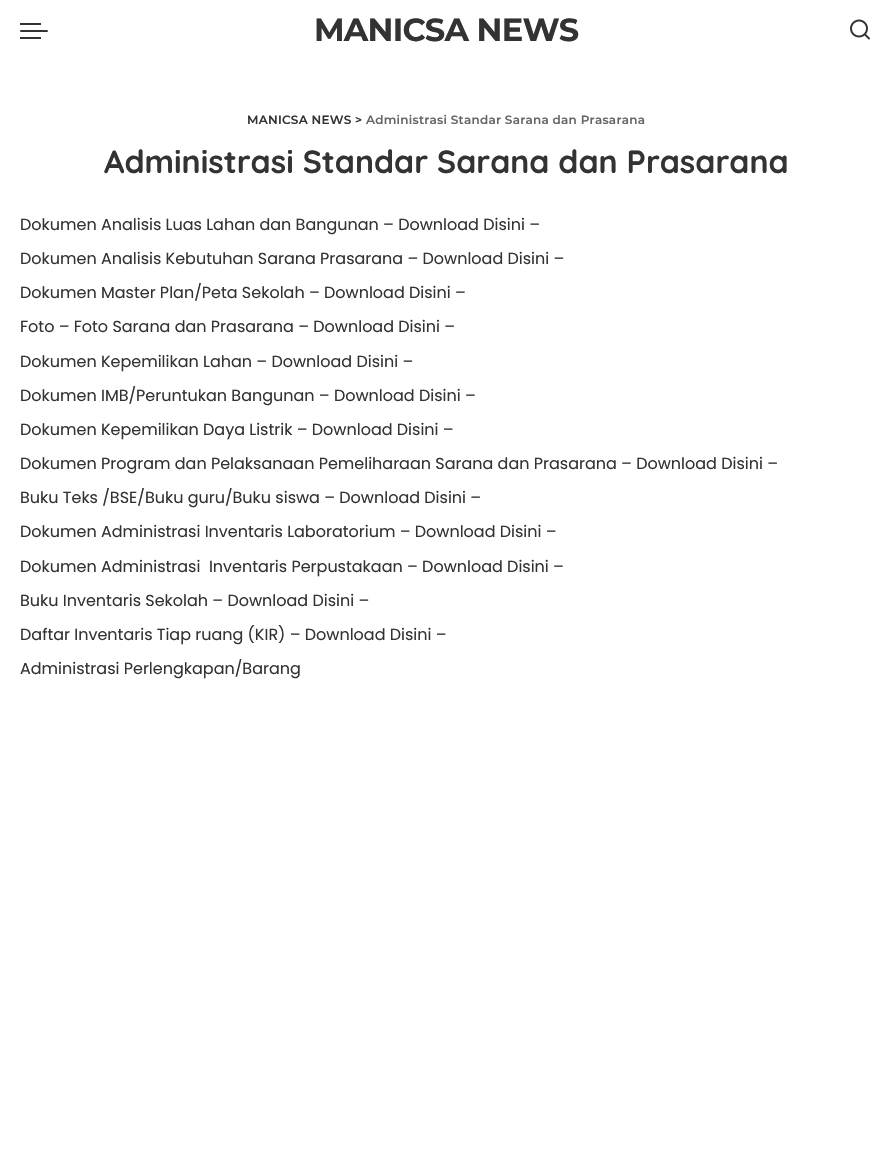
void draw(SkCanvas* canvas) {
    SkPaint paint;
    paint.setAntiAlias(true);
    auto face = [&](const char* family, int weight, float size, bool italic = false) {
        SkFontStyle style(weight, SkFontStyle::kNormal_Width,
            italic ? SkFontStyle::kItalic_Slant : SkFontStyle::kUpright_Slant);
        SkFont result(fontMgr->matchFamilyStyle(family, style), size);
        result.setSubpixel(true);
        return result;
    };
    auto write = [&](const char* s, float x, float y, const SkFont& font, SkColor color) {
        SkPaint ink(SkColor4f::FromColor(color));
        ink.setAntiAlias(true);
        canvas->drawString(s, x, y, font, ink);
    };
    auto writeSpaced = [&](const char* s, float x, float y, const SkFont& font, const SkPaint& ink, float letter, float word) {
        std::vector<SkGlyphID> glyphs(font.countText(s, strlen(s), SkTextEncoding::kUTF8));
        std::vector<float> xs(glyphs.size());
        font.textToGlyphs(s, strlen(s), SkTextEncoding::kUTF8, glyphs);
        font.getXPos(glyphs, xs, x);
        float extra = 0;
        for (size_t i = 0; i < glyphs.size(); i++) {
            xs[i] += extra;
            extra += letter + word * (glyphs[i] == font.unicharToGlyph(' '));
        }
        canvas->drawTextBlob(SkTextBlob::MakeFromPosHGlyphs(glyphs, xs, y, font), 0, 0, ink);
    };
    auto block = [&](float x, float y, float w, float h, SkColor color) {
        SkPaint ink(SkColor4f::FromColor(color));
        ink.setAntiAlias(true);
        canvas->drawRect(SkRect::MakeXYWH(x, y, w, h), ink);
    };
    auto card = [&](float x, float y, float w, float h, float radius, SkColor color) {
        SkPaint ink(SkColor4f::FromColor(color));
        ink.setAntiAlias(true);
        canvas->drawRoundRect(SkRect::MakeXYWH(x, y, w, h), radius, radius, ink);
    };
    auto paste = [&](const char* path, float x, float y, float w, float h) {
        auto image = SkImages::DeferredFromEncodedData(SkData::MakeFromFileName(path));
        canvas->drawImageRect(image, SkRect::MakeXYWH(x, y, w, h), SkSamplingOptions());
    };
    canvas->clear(SK_ColorWHITE);
    card(20, 30, 28, 2, 1, SkColorSetRGB(51, 51, 51));
    block(20, 23, 21, 2, SkColorSetRGB(51, 51, 51));
    block(20, 37, 21, 2, SkColorSetRGB(51, 51, 51));
    auto kFont1 = face("Montserrat", 700, 32);
    paint.setColor(SkColorSetRGB(51, 51, 51));
    writeSpaced("MANICSA NEWS", 314, 41, kFont1, paint, -0.75f, 0);
    paste("pic1.png", 850, 19, 20, 21);
    auto kFont2 = face("Montserrat", 600, 12);
    writeSpaced("MANICSA NEWS >", 247, 124, kFont2, paint, 0.25f, 0);
    paint.setColor(SkColorSetRGB(102, 102, 102));
    writeSpaced("Administrasi Standar Sarana dan Prasarana", 366, 124, kFont2, paint, 0.25f, 0);
    auto kFont3 = face("Quicksand", 700, 32);
    write("Administrasi Standar Sarana dan Prasarana", 104, 173, kFont3, SkColorSetRGB(51, 51, 51));
    auto kFont4 = face("Poppins", 400, 16);
    write("Dokumen Analisis Luas Lahan dan Bangunan – Download Disini –", 20, 230, kFont4, SkColorSetRGB(51, 51, 51));
    write("Dokumen Analisis Kebutuhan Sarana Prasarana – Download Disini –", 20, 264, kFont4, SkColorSetRGB(51, 51, 51));
    write("Dokumen Master Plan/Peta Sekolah – Download Disini –", 20, 298, kFont4, SkColorSetRGB(51, 51, 51));
    write("Foto – Foto Sarana dan Prasarana – Download Disini –", 20, 332, kFont4, SkColorSetRGB(51, 51, 51));
    write("Dokumen Kepemilikan Lahan – Download Disini –", 20, 367, kFont4, SkColorSetRGB(51, 51, 51));
    write("Dokumen IMB/Peruntukan Bangunan – Download Disini –", 20, 401, kFont4, SkColorSetRGB(51, 51, 51));
    write("Dokumen Kepemilikan Daya Listrik – Download Disini –", 20, 435, kFont4, SkColorSetRGB(51, 51, 51));
    write("Dokumen Program dan Pelaksanaan Pemeliharaan Sarana dan Prasarana – Download Disini –", 20, 469, kFont4, SkColorSetRGB(51, 51, 51));
    write("Buku Teks /BSE/Buku guru/Buku siswa – Download Disini –", 20, 503, kFont4, SkColorSetRGB(51, 51, 51));
    write("Dokumen Administrasi Inventaris Laboratorium – Download Disini –", 20, 537, kFont4, SkColorSetRGB(51, 51, 51));
    write("Dokumen Administrasi  Inventaris Perpustakaan – Download Disini –", 20, 572, kFont4, SkColorSetRGB(51, 51, 51));
    write("Buku Inventaris Sekolah – Download Disini –", 20, 606, kFont4, SkColorSetRGB(51, 51, 51));
    write("Daftar Inventaris Tiap ruang (KIR) – Download Disini –", 20, 640, kFont4, SkColorSetRGB(51, 51, 51));
    write("Administrasi Perlengkapan/Barang", 20, 674, kFont4, SkColorSetRGB(51, 51, 51));
}
